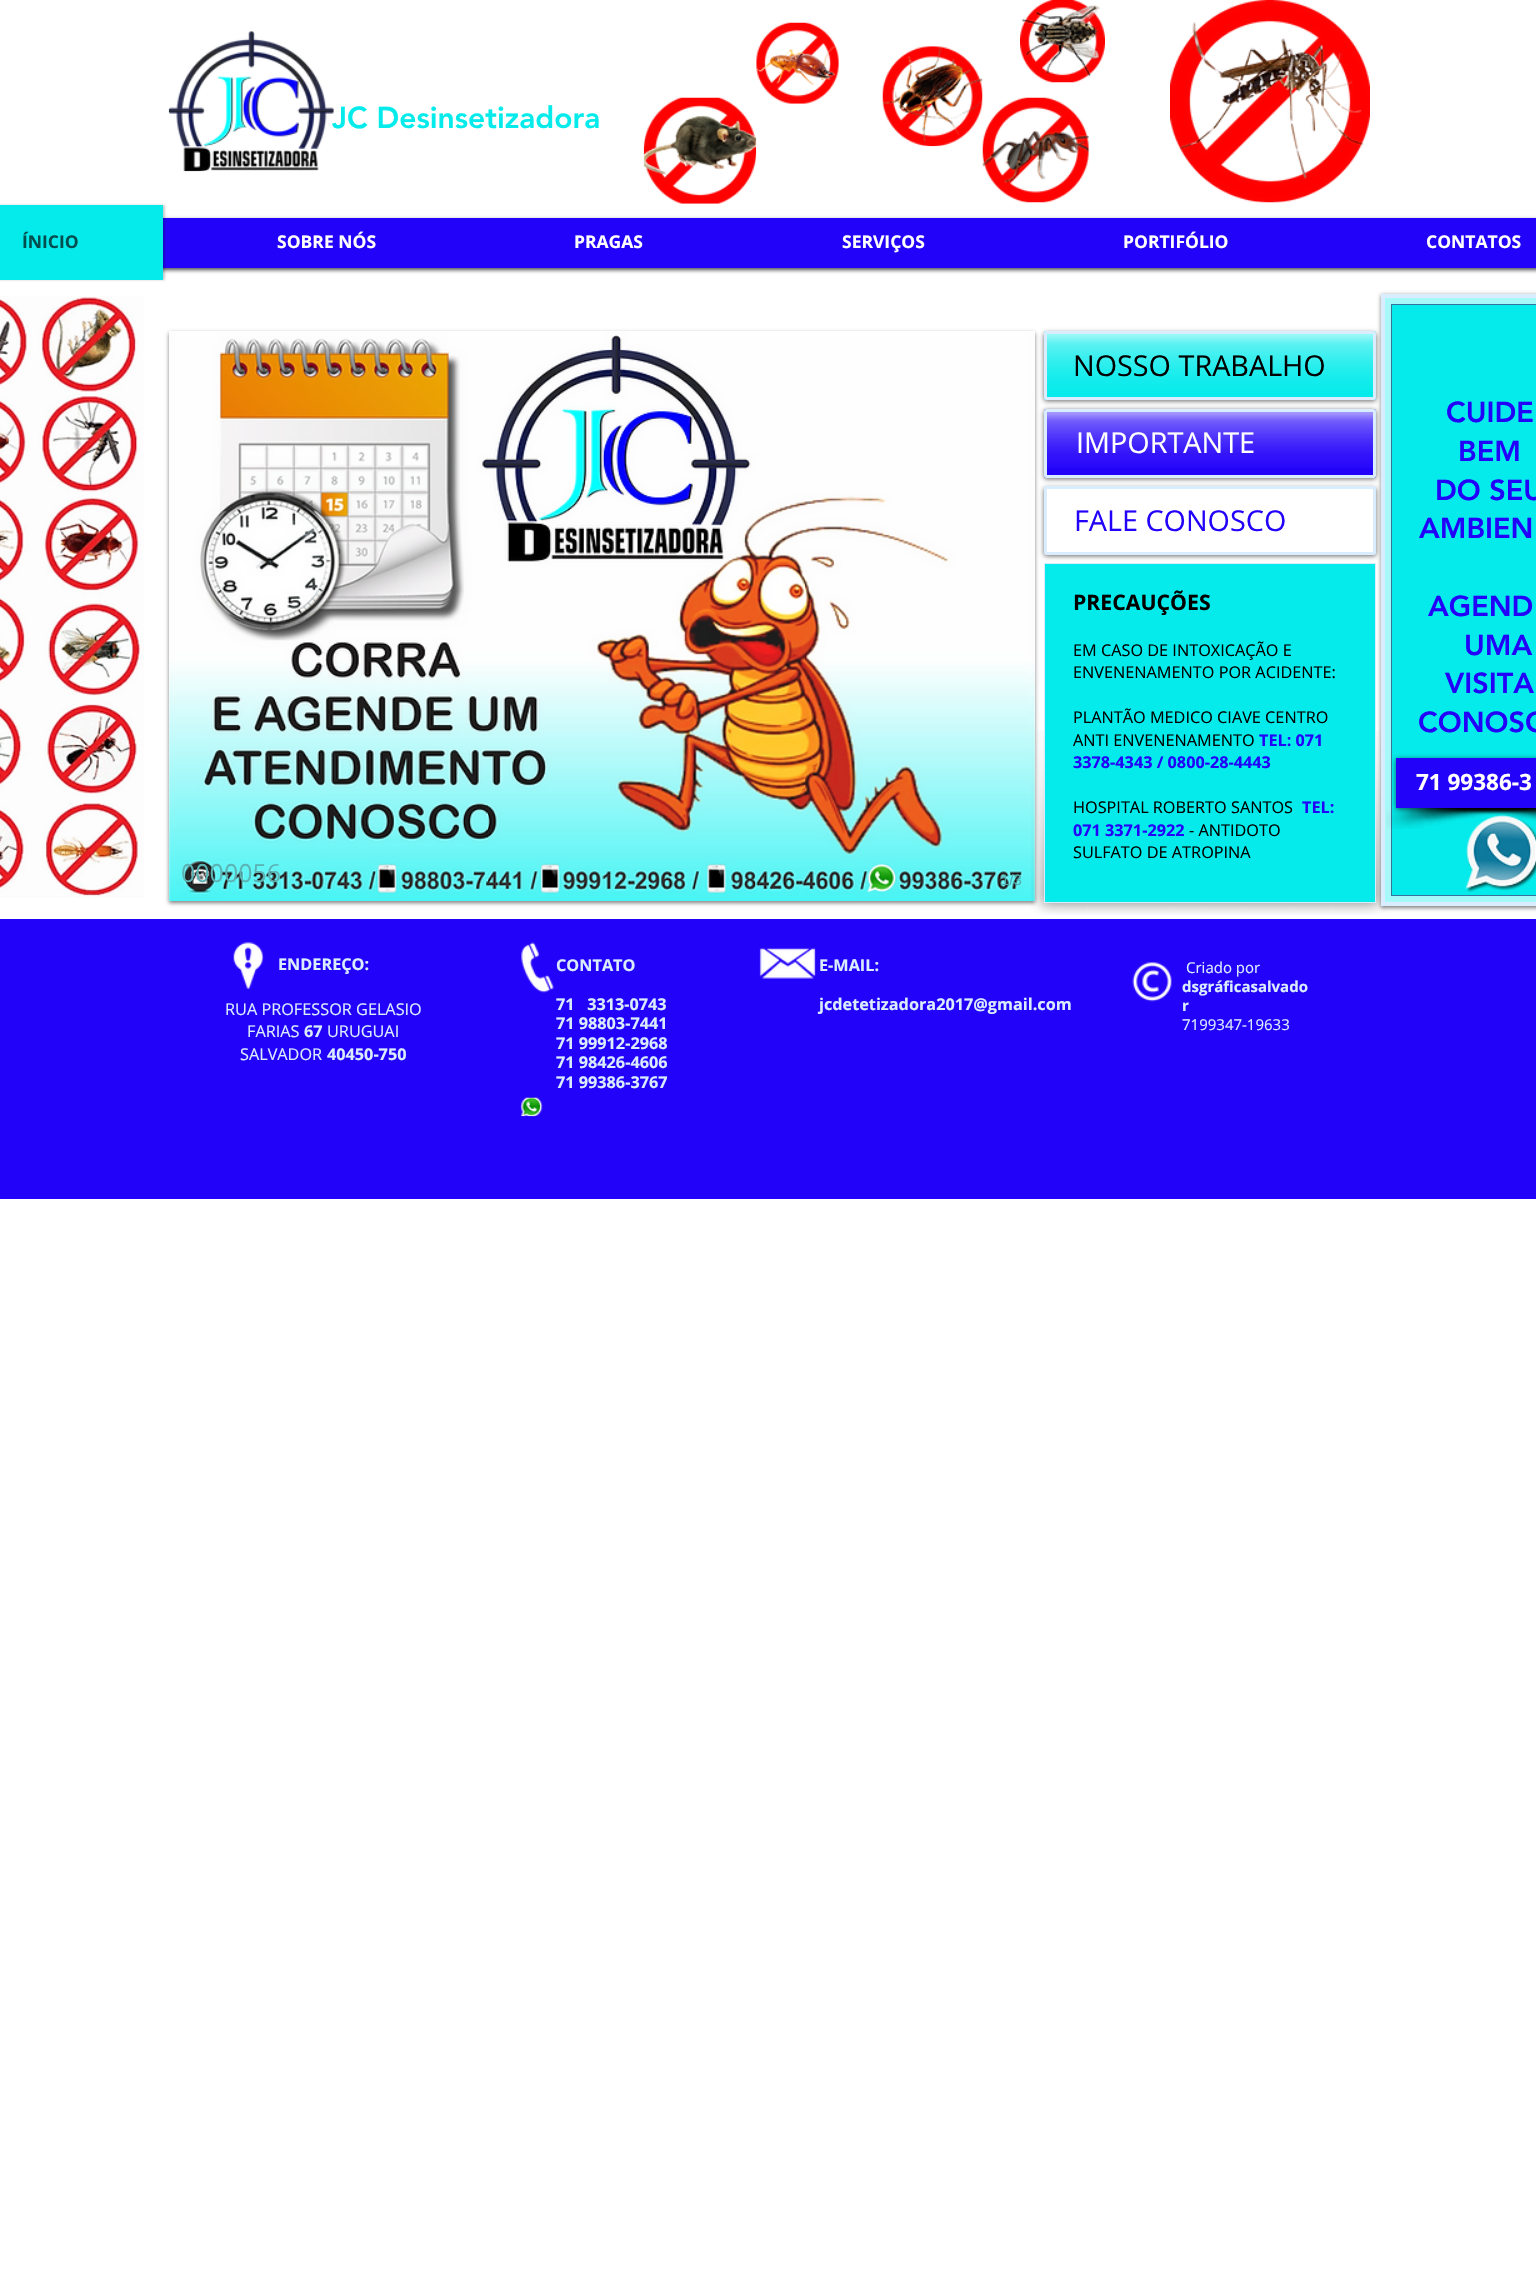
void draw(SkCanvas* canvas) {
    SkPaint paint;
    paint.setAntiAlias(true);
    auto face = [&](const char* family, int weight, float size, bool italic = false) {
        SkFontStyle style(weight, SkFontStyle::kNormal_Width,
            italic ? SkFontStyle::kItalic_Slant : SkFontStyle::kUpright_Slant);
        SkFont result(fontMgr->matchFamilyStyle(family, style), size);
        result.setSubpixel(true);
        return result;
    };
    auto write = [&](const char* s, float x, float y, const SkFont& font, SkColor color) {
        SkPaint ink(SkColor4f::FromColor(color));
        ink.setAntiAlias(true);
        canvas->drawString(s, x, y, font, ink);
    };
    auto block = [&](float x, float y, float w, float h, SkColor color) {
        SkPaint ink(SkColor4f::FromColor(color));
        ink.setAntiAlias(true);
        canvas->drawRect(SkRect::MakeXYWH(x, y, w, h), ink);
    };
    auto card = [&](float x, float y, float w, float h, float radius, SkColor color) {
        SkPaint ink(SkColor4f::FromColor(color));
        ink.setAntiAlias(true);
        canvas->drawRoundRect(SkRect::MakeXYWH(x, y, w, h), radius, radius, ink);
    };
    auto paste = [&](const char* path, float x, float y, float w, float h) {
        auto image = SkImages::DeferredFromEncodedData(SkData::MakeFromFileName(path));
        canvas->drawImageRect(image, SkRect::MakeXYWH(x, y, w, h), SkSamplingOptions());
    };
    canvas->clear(SK_ColorWHITE);
    auto kFont1 = face("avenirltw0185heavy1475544", 900, 30);
    write("JC Desinsetizadora", 332, 128, kFont1, SkColorSetRGB(5, 235, 235));
    paste("pic1.png", 168, 31, 166, 141);
    paste("pic2.png", 643, 97, 114, 107);
    paste("pic3.png", 756, 22, 83, 82);
    paste("pic4.png", 1020, 0, 85, 83);
    paste("pic5.png", 1170, 0, 200, 203);
    paste("pic6.png", 982, 97, 107, 106);
    paint.setColor(SkColorSetARGB(179, 0, 0, 0));
    paint.setMaskFilter(SkMaskFilter::MakeBlur(kNormal_SkBlurStyle, 2));
    canvas->drawRect(SkRect::MakeXYWH(-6, 220, 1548, 50), paint);
    paint.setMaskFilter(nullptr);
    block(163, 218, 1373, 50, SkColorSetRGB(35, 2, 250));
    paint.setColor(SkColorSetARGB(51, 0, 0, 0));
    paint.setMaskFilter(SkMaskFilter::MakeBlur(kNormal_SkBlurStyle, 1));
    canvas->drawRect(SkRect::MakeXYWH(-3, 205, 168, 75), paint);
    paint.setMaskFilter(nullptr);
    block(0, 205, 163, 75, SkColorSetRGB(5, 235, 235));
    auto kFont2 = face("Open Sans", 700, 17.5f);
    write("ÍNICIO", 22, 248, kFont2, SkColorSetRGB(2, 78, 78));
    write("SOBRE NÓS", 277, 248, kFont2, SK_ColorWHITE);
    write("PRAGAS", 574, 248, kFont2, SK_ColorWHITE);
    write("SERVIÇOS", 842, 248, kFont2, SK_ColorWHITE);
    write("PORTIFÓLIO", 1123, 248, kFont2, SK_ColorWHITE);
    write("CONTATOS", 1426, 248, kFont2, SK_ColorWHITE);
    paste("pic7.png", 882, 46, 101, 101);
    paste("pic8.png", 0, 296, 144, 602);
    paint.setColor(SkColorSetARGB(153, 0, 0, 0));
    paint.setMaskFilter(SkMaskFilter::MakeBlur(kNormal_SkBlurStyle, 2.5f));
    canvas->drawRoundRect(SkRect::MakeXYWH(1044, 333, 332, 68), 2.5f, 2.5f, paint);
    paint.setMaskFilter(nullptr);
    card(1044, 331, 332, 69, 2.5f, SkColorSetRGB(5, 235, 235));
    paste("pic9.png", 1044, 333, 332, 58);
    paint.setStyle(SkPaint::kStroke_Style);
    paint.setStrokeWidth(3);
    paint.setColor(SkColorSetRGB(218, 237, 255));
    canvas->drawRoundRect(SkRect::MakeXYWH(1045.5f, 332.5f, 329, 66), 1, 1, paint);
    auto kFont3 = face("Open Sans", 400, 28.75f);
    write("NOSSO TRABALHO", 1073, 376, kFont3, SK_ColorBLACK);
    paint.setStyle(SkPaint::kFill_Style);
    paint.setColor(SkColorSetARGB(153, 0, 0, 0));
    paint.setMaskFilter(SkMaskFilter::MakeBlur(kNormal_SkBlurStyle, 2.5f));
    canvas->drawRoundRect(SkRect::MakeXYWH(1044, 410, 332, 69), 2.5f, 2.5f, paint);
    paint.setMaskFilter(nullptr);
    card(1044, 409, 332, 69, 2.5f, SkColorSetRGB(35, 2, 250));
    paste("pic10.png", 1044, 411, 332, 57);
    paint.setStyle(SkPaint::kStroke_Style);
    paint.setColor(SkColorSetRGB(218, 237, 255));
    canvas->drawRoundRect(SkRect::MakeXYWH(1045.5f, 410.5f, 329, 66), 1, 1, paint);
    write("IMPORTANTE", 1076, 453, kFont3, SK_ColorWHITE);
    paint.setStyle(SkPaint::kFill_Style);
    paint.setColor(SkColorSetARGB(153, 0, 0, 0));
    paint.setMaskFilter(SkMaskFilter::MakeBlur(kNormal_SkBlurStyle, 2.5f));
    canvas->drawRoundRect(SkRect::MakeXYWH(1044, 488, 332, 68), 2.5f, 2.5f, paint);
    paint.setMaskFilter(nullptr);
    paint.setColor(SK_ColorWHITE);
    canvas->drawRoundRect(SkRect::MakeXYWH(1045.5f, 487.5f, 329, 66), 1, 1, paint);
    paint.setStyle(SkPaint::kStroke_Style);
    paint.setColor(SkColorSetRGB(218, 237, 255));
    canvas->drawRoundRect(SkRect::MakeXYWH(1045.5f, 487.5f, 329, 66), 1, 1, paint);
    canvas->save();
    canvas->clipPath(SkPathBuilder(SkPathFillType::kEvenOdd).moveTo(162, 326).lineTo(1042, 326).lineTo(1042, 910).lineTo(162, 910).close().moveTo(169, 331).lineTo(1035, 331).lineTo(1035, 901).lineTo(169, 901).close().detach(), true);
    paint.setStyle(SkPaint::kFill_Style);
    paint.setColor(SkColorSetARGB(128, 0, 0, 0));
    paint.setMaskFilter(SkMaskFilter::MakeBlur(kNormal_SkBlurStyle, 2));
    canvas->drawRect(SkRect::MakeXYWH(169, 333, 866, 570), paint);
    paint.setMaskFilter(nullptr);
    canvas->restore();
    paste("pic17.png", 169, 331, 866, 570);
    paste("pic14.png", 1031, 731, 57, 184);
    paste("pic16.png", 1087, 903, 246, 12);
    paste("pic15.png", 1332, 731, 54, 184);
    paint.setColor(SkColorSetRGB(5, 235, 235));
    canvas->drawRect(SkRect::MakeXYWH(1044.5f, 563.5f, 331, 339), paint);
    paint.setStyle(SkPaint::kStroke_Style);
    paint.setStrokeWidth(1);
    paint.setColor(SkColorSetRGB(218, 237, 255));
    canvas->drawRect(SkRect::MakeXYWH(1044.5f, 563.5f, 331, 339), paint);
    paint.setStyle(SkPaint::kFill_Style);
    paint.setColor(SkColorSetARGB(128, 0, 0, 0));
    paint.setMaskFilter(SkMaskFilter::MakeBlur(kNormal_SkBlurStyle, 2));
    canvas->drawRect(SkRect::MakeXYWH(1381, 295, 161, 613), paint);
    paint.setMaskFilter(nullptr);
    paint.setColor(SkColorSetRGB(167, 248, 248));
    canvas->drawRect(SkRect::MakeXYWH(1383, 296, 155, 608), paint);
    paint.setStyle(SkPaint::kStroke_Style);
    paint.setStrokeWidth(4);
    paint.setColor(SkColorSetRGB(218, 237, 255));
    canvas->drawRect(SkRect::MakeXYWH(1383, 296, 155, 608), paint);
    paint.setStyle(SkPaint::kFill_Style);
    paint.setColor(SkColorSetRGB(5, 235, 235));
    canvas->drawRect(SkRect::MakeXYWH(1391.5f, 304.5f, 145, 591), paint);
    paint.setStyle(SkPaint::kStroke_Style);
    paint.setStrokeWidth(1);
    paint.setColor(SkColorSetRGB(57, 114, 155));
    canvas->drawRect(SkRect::MakeXYWH(1391.5f, 304.5f, 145, 591), paint);
    auto kFont4 = face("avenirltw0185heavy1475544", 900, 28.75f);
    write("CUIDE", 1446, 422, kFont4, SkColorSetRGB(35, 2, 250));
    write("BEM", 1458, 461, kFont4, SkColorSetRGB(35, 2, 250));
    write("DO SEU", 1435, 500, kFont4, SkColorSetRGB(35, 2, 250));
    write("AMBIEN", 1419, 538, kFont4, SkColorSetRGB(35, 2, 250));
    write("AGEND", 1428, 616, kFont4, SkColorSetRGB(35, 2, 250));
    write("UMA", 1464, 655, kFont4, SkColorSetRGB(35, 2, 250));
    write("VISITA", 1445, 693, kFont4, SkColorSetRGB(35, 2, 250));
    write("CONOSC", 1418, 732, kFont4, SkColorSetRGB(35, 2, 250));
    paste("pic11.png", 1386, 808, 150, 21);
    paste("pic12.png", 1426, 808, 110, 13);
    paint.setStyle(SkPaint::kFill_Style);
    paint.setColor(SkColorSetARGB(153, 0, 0, 0));
    paint.setMaskFilter(SkMaskFilter::MakeBlur(kNormal_SkBlurStyle, 2.5f));
    canvas->drawRect(SkRect::MakeXYWH(1396, 759, 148, 50), paint);
    paint.setMaskFilter(nullptr);
    block(1396, 758, 140, 50, SkColorSetRGB(35, 2, 250));
    auto kFont5 = face("Open Sans", 700, 22.5f);
    write("71 99386-3", 1416, 790, kFont5, SK_ColorWHITE);
    paste("pic13.png", 1465, 815, 71, 77);
    write("FALE CONOSCO", 1074, 531, kFont3, SkColorSetRGB(35, 2, 250));
    auto kFont6 = face("Open Sans", 700, 21.25f);
    write("PRECAUÇÕES", 1073, 610, kFont6, SK_ColorBLACK);
    auto kFont7 = face("Open Sans", 400, 16.25f);
    write("EM CASO DE INTOXICAÇÃO E", 1073, 656, kFont7, SK_ColorBLACK);
    write("ENVENENAMENTO POR ACIDENTE:", 1073, 678, kFont7, SK_ColorBLACK);
    write("PLANTÃO MEDICO CIAVE CENTRO", 1073, 723, kFont7, SK_ColorBLACK);
    write("ANTI ENVENENAMENTO", 1073, 746, kFont7, SK_ColorBLACK);
    auto kFont8 = face("Open Sans", 700, 16.25f);
    write("TEL: 071", 1259, 746, kFont8, SkColorSetRGB(35, 2, 250));
    write("3378-4343 / 0800-28-4443", 1073, 768, kFont8, SkColorSetRGB(35, 2, 250));
    write("HOSPITAL ROBERTO SANTOS", 1073, 813, kFont7, SK_ColorBLACK);
    write("TEL:", 1302, 813, kFont8, SkColorSetRGB(35, 2, 250));
    write("071 3371-2922", 1073, 836, kFont8, SkColorSetRGB(35, 2, 250));
    write("- ANTIDOTO", 1189, 836, kFont7, SK_ColorBLACK);
    write("SULFATO DE ATROPINA", 1073, 858, kFont7, SK_ColorBLACK);
    auto kFont9 = face("Open Sans", 400, 25);
    write("0000056", 181, 882, kFont9, SkColorSetRGB(92, 179, 180));
    auto kFont10 = face("Liberation Sans", 400, 15);
    write("1/3", 1001, 885, kFont10, SkColorSetRGB(81, 175, 175));
    block(0, 919, 1536, 280, SkColorSetRGB(35, 2, 250));
    paste("pic18.png", 233, 942, 31, 47);
    paste("pic19.png", 521, 942, 33, 51);
    paste("pic20.png", 759, 947, 57, 32);
    write("ENDEREÇO:", 278, 970, kFont8, SkColorSetRGB(218, 237, 255));
    write("RUA PROFESSOR GELASIO", 225, 1015, kFont7, SkColorSetRGB(218, 237, 255));
    write("FARIAS", 247, 1037, kFont7, SkColorSetRGB(218, 237, 255));
    write("67", 304, 1037, kFont8, SkColorSetRGB(218, 237, 255));
    write("URUGUAI", 327, 1037, kFont7, SkColorSetRGB(218, 237, 255));
    write("SALVADOR", 240, 1060, kFont7, SkColorSetRGB(218, 237, 255));
    write("40450-750", 327, 1060, kFont8, SkColorSetRGB(218, 237, 255));
    write("CONTATO", 556, 971, kFont8, SkColorSetRGB(218, 237, 255));
    write("71   3313-0743", 556, 1010, kFont8, SkColorSetRGB(218, 237, 255));
    write("71 98803-7441", 556, 1029, kFont8, SkColorSetRGB(218, 237, 255));
    write("71 99912-2968", 556, 1049, kFont8, SkColorSetRGB(218, 237, 255));
    write("71 98426-4606", 556, 1068, kFont8, SkColorSetRGB(218, 237, 255));
    write("71 99386-3767", 556, 1088, kFont8, SkColorSetRGB(218, 237, 255));
    write("E-MAIL:", 819, 971, kFont8, SkColorSetRGB(218, 237, 255));
    write("jcdetetizadora2017@gmail.com", 819, 1010, kFont8, SkColorSetRGB(218, 237, 255));
    paste("pic21.png", 1132, 962, 40, 40);
    auto kFont11 = face("Open Sans", 400, 15);
    write("Criado por", 1186, 973, kFont11, SkColorSetRGB(218, 237, 255));
    auto kFont12 = face("Open Sans", 700, 15);
    write("dsgráficasalvado", 1182, 992, kFont12, SkColorSetRGB(218, 237, 255));
    write("r", 1182, 1011, kFont12, SkColorSetRGB(218, 237, 255));
    write("7199347-19633", 1182, 1030, kFont11, SkColorSetRGB(218, 237, 255));
    paste("pic22.png", 520, 1097, 23, 20);
}
